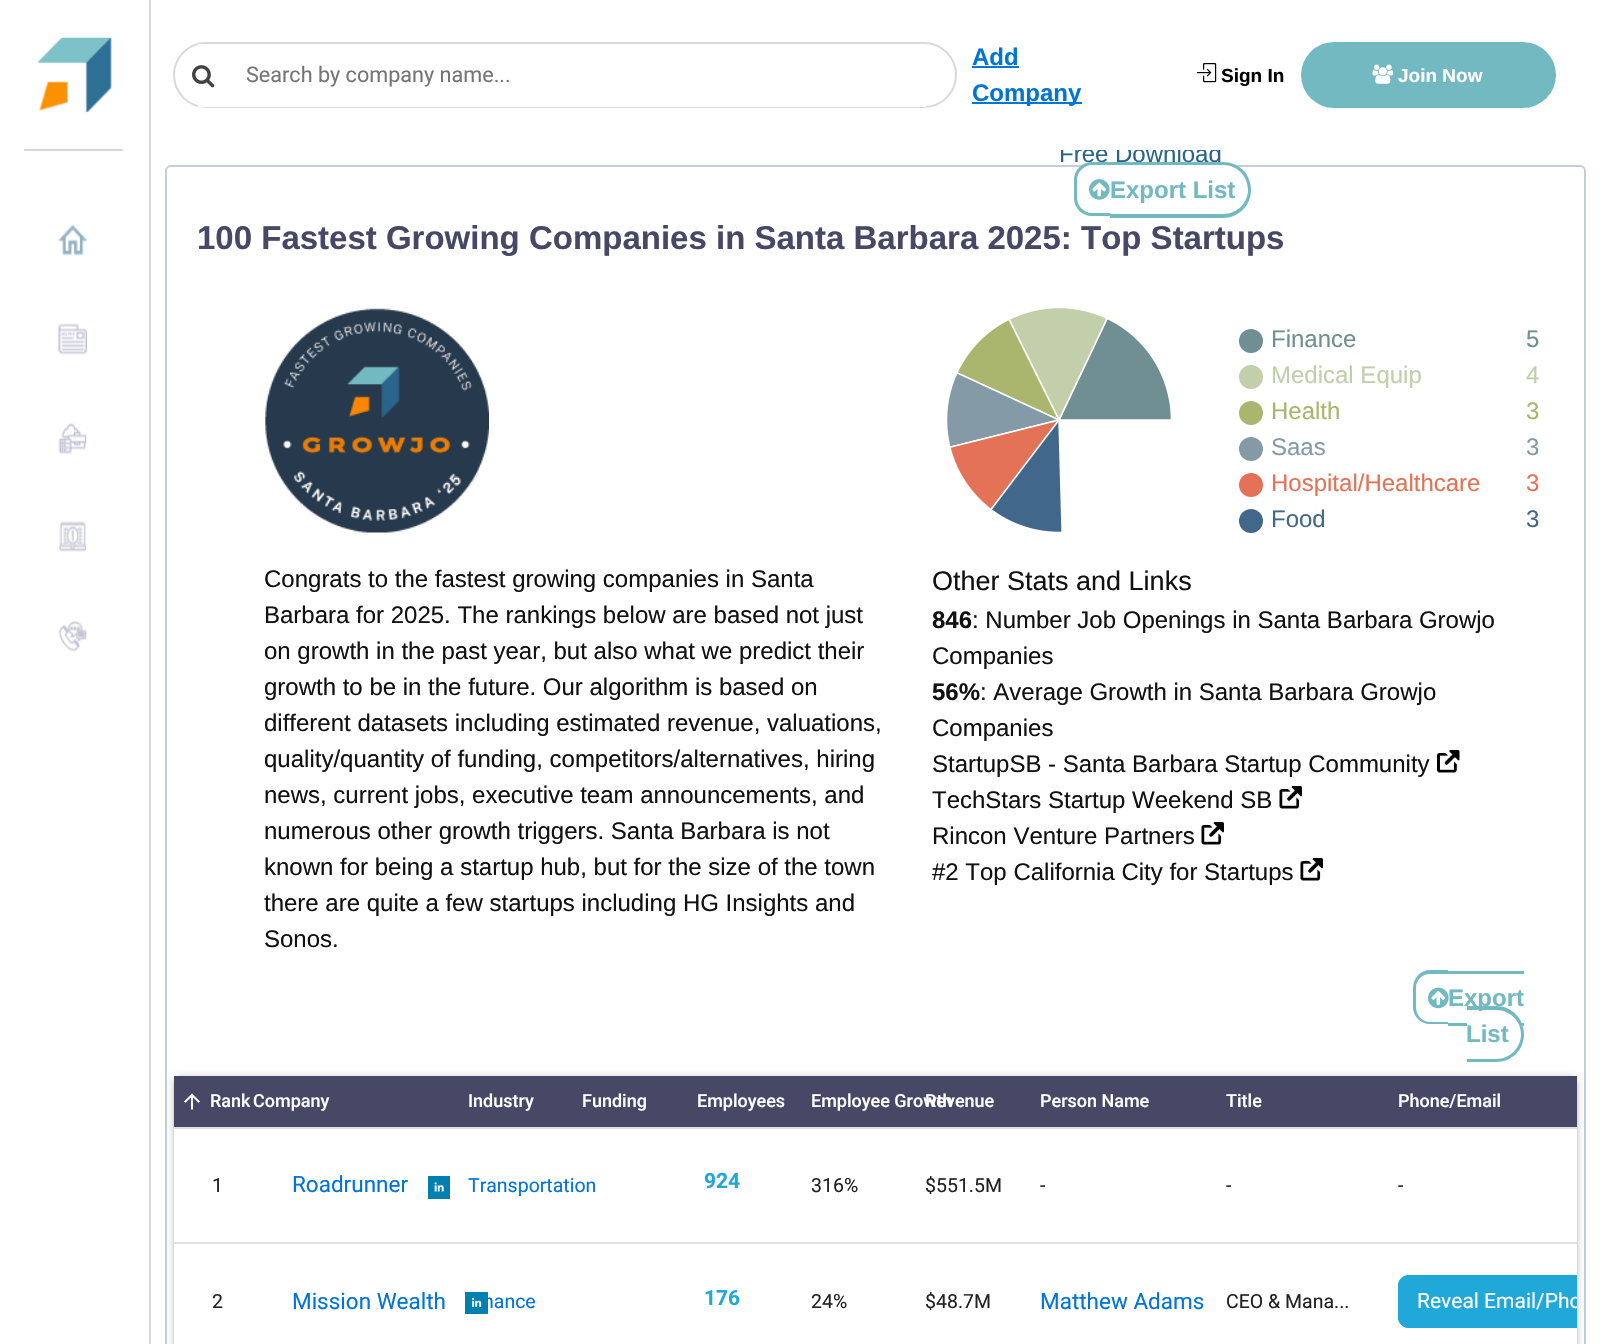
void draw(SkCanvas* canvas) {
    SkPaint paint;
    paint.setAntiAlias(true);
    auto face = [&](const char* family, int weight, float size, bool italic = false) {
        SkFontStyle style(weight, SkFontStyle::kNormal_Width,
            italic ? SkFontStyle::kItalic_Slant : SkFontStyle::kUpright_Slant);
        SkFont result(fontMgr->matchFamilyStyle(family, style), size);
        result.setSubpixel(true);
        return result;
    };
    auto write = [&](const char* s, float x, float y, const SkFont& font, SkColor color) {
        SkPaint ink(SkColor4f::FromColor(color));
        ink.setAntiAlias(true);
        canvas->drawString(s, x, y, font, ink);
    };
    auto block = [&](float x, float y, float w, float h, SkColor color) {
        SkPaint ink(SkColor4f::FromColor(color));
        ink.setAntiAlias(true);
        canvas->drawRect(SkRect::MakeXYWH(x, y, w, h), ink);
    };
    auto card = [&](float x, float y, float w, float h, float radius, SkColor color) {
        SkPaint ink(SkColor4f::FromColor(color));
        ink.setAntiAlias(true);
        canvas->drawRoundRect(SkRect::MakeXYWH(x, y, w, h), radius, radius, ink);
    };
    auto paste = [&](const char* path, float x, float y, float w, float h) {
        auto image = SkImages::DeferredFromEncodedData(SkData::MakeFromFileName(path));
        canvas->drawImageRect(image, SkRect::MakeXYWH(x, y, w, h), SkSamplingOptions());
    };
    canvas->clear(SK_ColorWHITE);
    paste("pic1.png", 38, 37, 75, 76);
    block(24, 149, 99, 2, SkColorSetRGB(214, 218, 221));
    paint.setStyle(SkPaint::kStroke_Style);
    paint.setStrokeWidth(2);
    paint.setColor(SkColorSetRGB(214, 218, 221));
    canvas->drawRoundRect(SkRect::MakeXYWH(174, 43, 782, 64), 32, 32, paint);
    block(198, 44, 728, 63, SK_ColorWHITE);
    paste("pic2.png", 192, 65, 23, 23);
    auto kFont1 = face("Roboto", 400, 21.6f);
    write("Search by company name...", 246, 82, kFont1, SkColorSetRGB(117, 117, 117));
    auto kFont2 = face("Liberation Sans", 700, 24);
    write("Add", 972, 65, kFont2, SkColorSetRGB(0, 116, 217));
    block(972, 66, 47, 2, SkColorSetRGB(0, 116, 217));
    block(972, 102, 110, 2, SkColorSetRGB(0, 116, 217));
    write("Company", 972, 101, kFont2, SkColorSetRGB(0, 116, 217));
    paste("pic3.png", 1197, 63, 20, 20);
    auto kFont3 = face("Liberation Sans", 700, 19);
    write("Sign In", 1221, 82, kFont3, SK_ColorBLACK);
    card(1301, 42, 255, 66, 33, SkColorSetRGB(114, 185, 194));
    paste("pic4.png", 1372, 64, 22, 20);
    write("Join Now", 1398, 82, kFont3, SK_ColorWHITE);
    block(149, 0, 2, 1344, SkColorSetRGB(214, 218, 221));
    paste("pic5.png", 58, 224, 29, 32);
    paste("pic6.png", 58, 323, 29, 32);
    paste("pic7.png", 58, 423, 29, 31);
    paste("pic8.png", 59, 521, 28, 31);
    paste("pic9.png", 58, 620, 29, 32);
    paint.setColor(SkColorSetRGB(194, 207, 214));
    canvas->drawRoundRect(SkRect::MakeXYWH(166, 166, 1419, 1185), 5, 5, paint);
    paint.setStyle(SkPaint::kFill_Style);
    paint.setColor(SK_ColorWHITE);
    canvas->drawPath(SkPathBuilder().moveTo(172, 167).lineTo(1579, 167).cubicTo(1582, 167, 1584, 169, 1584, 172).lineTo(1584, 278).lineTo(167, 278).lineTo(167, 172).cubicTo(167, 169, 169, 167, 172, 167).close().detach(), paint);
    canvas->save();
    canvas->clipRect(SkRect::MakeXYWH(0, 150, 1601, 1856));
    auto kFont4 = face("Liberation Sans", 400, 24);
    write("Free Download", 1059, 162, kFont4, SkColorSetRGB(41, 101, 138));
    canvas->restore();
    canvas->drawPath(SkPathBuilder().moveTo(1092, 162).lineTo(1110, 162).lineTo(1110, 216).lineTo(1092, 216).cubicTo(1082, 216, 1074, 208, 1074, 198).lineTo(1074, 180).cubicTo(1074, 170, 1082, 162, 1092, 162).close().detach(), paint);
    paint.setColor(SkColorSetRGB(114, 185, 194));
    canvas->drawPath(SkPathBuilder(SkPathFillType::kEvenOdd).moveTo(1092, 162).lineTo(1110, 162).lineTo(1110, 216).lineTo(1092, 216).cubicTo(1082, 216, 1074, 208, 1074, 198).lineTo(1074, 180).cubicTo(1074, 170, 1082, 162, 1092, 162).close().moveTo(1092, 165).lineTo(1110, 165).lineTo(1110, 213).lineTo(1092, 213).cubicTo(1084, 213, 1077, 206, 1077, 198).lineTo(1077, 180).cubicTo(1077, 172, 1084, 165, 1092, 165).close().detach(), paint);
    paint.setColor(SK_ColorWHITE);
    canvas->drawPath(SkPathBuilder().moveTo(1110, 162).lineTo(1223, 162).cubicTo(1238.5f, 162, 1251, 174.5f, 1251, 190).cubicTo(1251, 205.5f, 1238.5f, 218, 1223, 218).lineTo(1110, 218).close().detach(), paint);
    paint.setColor(SkColorSetRGB(114, 185, 194));
    canvas->drawPath(SkPathBuilder(SkPathFillType::kEvenOdd).moveTo(1110, 162).lineTo(1223, 162).cubicTo(1239, 162, 1251, 174, 1251, 190).cubicTo(1251, 205, 1239, 218, 1223, 218).lineTo(1110, 218).close().moveTo(1110, 165).lineTo(1223, 165).cubicTo(1237, 165, 1248, 176, 1248, 190).cubicTo(1248, 203, 1237, 214, 1223, 214).lineTo(1110, 214).close().detach(), paint);
    paste("pic10.png", 1089, 179, 21, 21);
    write("Export List", 1110, 198, kFont2, SkColorSetRGB(114, 185, 194));
    auto kFont5 = face("Liberation Sans", 700, 33);
    write("100 Fastest Growing Companies in Santa Barbara 2025: Top Startups", 197, 249, kFont5, SkColorSetRGB(71, 72, 102));
    paste("pic11.png", 265, 308, 224, 225);
    write("Congrats to the fastest growing companies in Santa", 264, 587, kFont4, SkColorSetRGB(17, 17, 17));
    write("Barbara for 2025. The rankings below are based not just", 264, 623, kFont4, SkColorSetRGB(17, 17, 17));
    write("on growth in the past year, but also what we predict their", 264, 659, kFont4, SkColorSetRGB(17, 17, 17));
    write("growth to be in the future. Our algorithm is based on", 264, 695, kFont4, SkColorSetRGB(17, 17, 17));
    write("different datasets including estimated revenue, valuations,", 264, 731, kFont4, SkColorSetRGB(17, 17, 17));
    write("quality/quantity of funding, competitors/alternatives, hiring", 264, 767, kFont4, SkColorSetRGB(17, 17, 17));
    write("news, current jobs, executive team announcements, and", 264, 803, kFont4, SkColorSetRGB(17, 17, 17));
    write("numerous other growth triggers. Santa Barbara is not", 264, 839, kFont4, SkColorSetRGB(17, 17, 17));
    write("known for being a startup hub, but for the size of the town", 264, 875, kFont4, SkColorSetRGB(17, 17, 17));
    write("there are quite a few startups including HG Insights and", 264, 911, kFont4, SkColorSetRGB(17, 17, 17));
    write("Sonos.", 264, 947, kFont4, SkColorSetRGB(17, 17, 17));
    paste("pic12.png", 947, 308, 224, 224);
    paint.setColor(SkColorSetRGB(111, 143, 147));
    canvas->drawCircle(1251, 341, 12, paint);
    write("Finance", 1271, 347, kFont4, SkColorSetRGB(111, 143, 147));
    write("5", 1526, 347, kFont4, SkColorSetRGB(111, 143, 147));
    paint.setColor(SkColorSetRGB(195, 206, 170));
    canvas->drawCircle(1251, 377, 12, paint);
    write("Medical Equip", 1271, 383, kFont4, SkColorSetRGB(195, 206, 170));
    write("4", 1526, 383, kFont4, SkColorSetRGB(195, 206, 170));
    paint.setColor(SkColorSetRGB(170, 182, 110));
    canvas->drawCircle(1251, 413, 12, paint);
    write("Health", 1271, 419, kFont4, SkColorSetRGB(170, 182, 110));
    write("3", 1526, 419, kFont4, SkColorSetRGB(170, 182, 110));
    paint.setColor(SkColorSetRGB(132, 154, 167));
    canvas->drawCircle(1251, 449, 12, paint);
    write("Saas", 1271, 455, kFont4, SkColorSetRGB(132, 154, 167));
    write("3", 1526, 455, kFont4, SkColorSetRGB(132, 154, 167));
    paint.setColor(SkColorSetRGB(228, 114, 87));
    canvas->drawCircle(1251, 485, 12, paint);
    write("Hospital/Healthcare", 1271, 491, kFont4, SkColorSetRGB(228, 114, 87));
    write("3", 1526, 491, kFont4, SkColorSetRGB(228, 114, 87));
    paint.setColor(SkColorSetRGB(65, 104, 138));
    canvas->drawCircle(1251, 521, 12, paint);
    write("Food", 1271, 527, kFont4, SkColorSetRGB(65, 104, 138));
    write("3", 1526, 527, kFont4, SkColorSetRGB(65, 104, 138));
    auto kFont6 = face("Liberation Sans", 400, 27);
    write("Other Stats and Links", 932, 590, kFont6, SkColorSetRGB(17, 17, 17));
    write("846", 932, 628, kFont2, SkColorSetRGB(17, 17, 17));
    write(": Number Job Openings in Santa Barbara Growjo", 972, 628, kFont4, SkColorSetRGB(17, 17, 17));
    write("Companies", 932, 664, kFont4, SkColorSetRGB(17, 17, 17));
    write("56%", 932, 700, kFont2, SkColorSetRGB(17, 17, 17));
    write(": Average Growth in Santa Barbara Growjo", 980, 700, kFont4, SkColorSetRGB(17, 17, 17));
    write("Companies", 932, 736, kFont4, SkColorSetRGB(17, 17, 17));
    write("StartupSB - Santa Barbara Startup Community", 932, 772, kFont4, SkColorSetRGB(17, 17, 17));
    paste("pic13.png", 1437, 750, 23, 23);
    write("TechStars Startup Weekend SB", 932, 808, kFont4, SkColorSetRGB(17, 17, 17));
    paste("pic14.png", 1279, 786, 23, 23);
    write("Rincon Venture Partners", 932, 844, kFont4, SkColorSetRGB(17, 17, 17));
    paste("pic14.png", 1201, 822, 23, 23);
    write("#2 Top California City for Startups", 932, 880, kFont4, SkColorSetRGB(17, 17, 17));
    paste("pic14.png", 1300, 858, 23, 23);
    paint.setColor(SkColorSetRGB(114, 185, 194));
    canvas->drawPath(SkPathBuilder(SkPathFillType::kEvenOdd).moveTo(1430, 970).lineTo(1448, 970).lineTo(1448, 1024).lineTo(1430, 1024).cubicTo(1421, 1024, 1413, 1017, 1413, 1007).lineTo(1413, 988).cubicTo(1413, 978, 1421, 970, 1430, 970).close().moveTo(1430, 974).lineTo(1448, 974).lineTo(1448, 1022).lineTo(1430, 1022).cubicTo(1422, 1022, 1416, 1015, 1416, 1007).lineTo(1416, 988).cubicTo(1416, 980, 1422, 974, 1430, 974).close().detach(), paint);
    block(1448, 971, 76, 3, SkColorSetRGB(114, 185, 194));
    block(1448, 1023, 76, 3, SkColorSetRGB(114, 185, 194));
    paint.setColor(SK_ColorWHITE);
    canvas->drawPath(SkPathBuilder().moveTo(1467, 1007).lineTo(1496.5f, 1007).cubicTo(1511.5f, 1007, 1524, 1019.5f, 1524, 1034.5f).cubicTo(1524, 1049.5f, 1511.5f, 1062, 1496.5f, 1062).lineTo(1467, 1062).close().detach(), paint);
    paint.setColor(SkColorSetRGB(114, 185, 194));
    canvas->drawPath(SkPathBuilder(SkPathFillType::kEvenOdd).moveTo(1467, 1006).lineTo(1496, 1006).cubicTo(1512, 1006, 1524, 1019, 1524, 1034).cubicTo(1524, 1050, 1512, 1062, 1496, 1062).lineTo(1467, 1062).close().moveTo(1467, 1010).lineTo(1496, 1010).cubicTo(1510, 1010, 1521, 1021, 1521, 1034).cubicTo(1521, 1048, 1510, 1059, 1496, 1059).lineTo(1467, 1059).close().detach(), paint);
    paste("pic15.png", 1428, 987, 21, 22);
    write("Export", 1448, 1006, kFont2, SkColorSetRGB(114, 185, 194));
    write("List", 1466, 1042, kFont2, SkColorSetRGB(114, 185, 194));
    paint.setColor(SkColorSetARGB(36, 0, 0, 0));
    paint.setMaskFilter(SkMaskFilter::MakeBlur(kNormal_SkBlurStyle, 1.5f));
    canvas->drawRoundRect(SkRect::MakeXYWH(174, 1079, 1403, 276), 6, 6, paint);
    paint.setMaskFilter(nullptr);
    paint.setColor(SkColorSetARGB(51, 0, 0, 0));
    paint.setMaskFilter(SkMaskFilter::MakeBlur(kNormal_SkBlurStyle, 4));
    canvas->drawRoundRect(SkRect::MakeXYWH(174, 1077, 1403, 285), 6, 6, paint);
    paint.setMaskFilter(nullptr);
    block(174, 1129, 1403, 215, SK_ColorWHITE);
    block(174, 1076, 1403, 51, SkColorSetRGB(71, 72, 102));
    paste("pic16.png", 184, 1093, 16, 17);
    auto kFont7 = face("Roboto", 500, 18);
    write("Rank", 210, 1107, kFont7, SK_ColorWHITE);
    write("Company", 253, 1107, kFont7, SK_ColorWHITE);
    write("Industry", 468, 1107, kFont7, SK_ColorWHITE);
    write("Funding", 582, 1107, kFont7, SK_ColorWHITE);
    write("Employees", 697, 1107, kFont7, SK_ColorWHITE);
    write("Employee Growth", 811, 1107, kFont7, SK_ColorWHITE);
    write("Revenue", 925, 1107, kFont7, SK_ColorWHITE);
    write("Person Name", 1040, 1107, kFont7, SK_ColorWHITE);
    write("Title", 1226, 1107, kFont7, SK_ColorWHITE);
    block(174, 1127, 1403, 2, SkColorSetRGB(224, 224, 224));
    write("Phone/Email", 1398, 1107, kFont7, SK_ColorWHITE);
    auto kFont8 = face("Roboto", 400, 19.5f);
    write("1", 212, 1192, kFont8, SkColorSetRGB(33, 33, 33));
    auto kFont9 = face("Roboto", 400, 22.5f);
    write("Roadrunner", 292, 1192, kFont9, SkColorSetRGB(0, 116, 217));
    paste("pic17.png", 428, 1176, 22, 23);
    write("Transportation", 468, 1192, kFont8, SkColorSetRGB(0, 116, 217));
    auto kFont10 = face("Roboto", 700, 21);
    write("924", 704, 1188, kFont10, SkColorSetRGB(32, 168, 216));
    write("316%", 811, 1192, kFont8, SkColorSetRGB(33, 33, 33));
    write("$551.5M", 925, 1192, kFont8, SkColorSetRGB(33, 33, 33));
    write("-", 1040, 1192, kFont8, SkColorSetRGB(33, 33, 33));
    write("-", 1226, 1192, kFont8, SkColorSetRGB(33, 33, 33));
    block(174, 1242, 1403, 2, SkColorSetRGB(224, 224, 224));
    write("-", 1398, 1192, kFont8, SkColorSetRGB(33, 33, 33));
    write("2", 212, 1308, kFont8, SkColorSetRGB(33, 33, 33));
    write("Mission Wealth", 292, 1309, kFont9, SkColorSetRGB(0, 116, 217));
    write("nance", 483, 1308, kFont8, SkColorSetRGB(0, 116, 217));
    paste("pic18.png", 465, 1292, 23, 22);
    write("176", 704, 1305, kFont10, SkColorSetRGB(32, 168, 216));
    write("24%", 811, 1308, kFont8, SkColorSetRGB(33, 33, 33));
    write("$48.7M", 925, 1308, kFont8, SkColorSetRGB(33, 33, 33));
    write("Matthew Adams", 1040, 1309, kFont9, SkColorSetRGB(0, 116, 217));
    write("CEO & Mana...", 1226, 1308, kFont8, SkColorSetRGB(33, 33, 33));
    paint.setColor(SkColorSetRGB(32, 168, 216));
    canvas->drawPath(SkPathBuilder().moveTo(1409, 1275).lineTo(1577, 1275).lineTo(1577, 1328).lineTo(1409, 1328).cubicTo(1403, 1328, 1398, 1323, 1398, 1317).lineTo(1398, 1286).cubicTo(1398, 1280, 1403, 1275, 1409, 1275).close().detach(), paint);
    canvas->save();
    canvas->clipRect(SkRect::MakeXYWH(174, 1076, 1403, 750));
    paint.setStyle(SkPaint::kStroke_Style);
    canvas->drawRoundRect(SkRect::MakeXYWH(1399, 1276, 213, 51), 10, 10, paint);
    auto kFont11 = face("Roboto", 400, 21);
    write("Reveal Email/Pho", 1417, 1308, kFont11, SK_ColorWHITE);
    canvas->restore();
}
